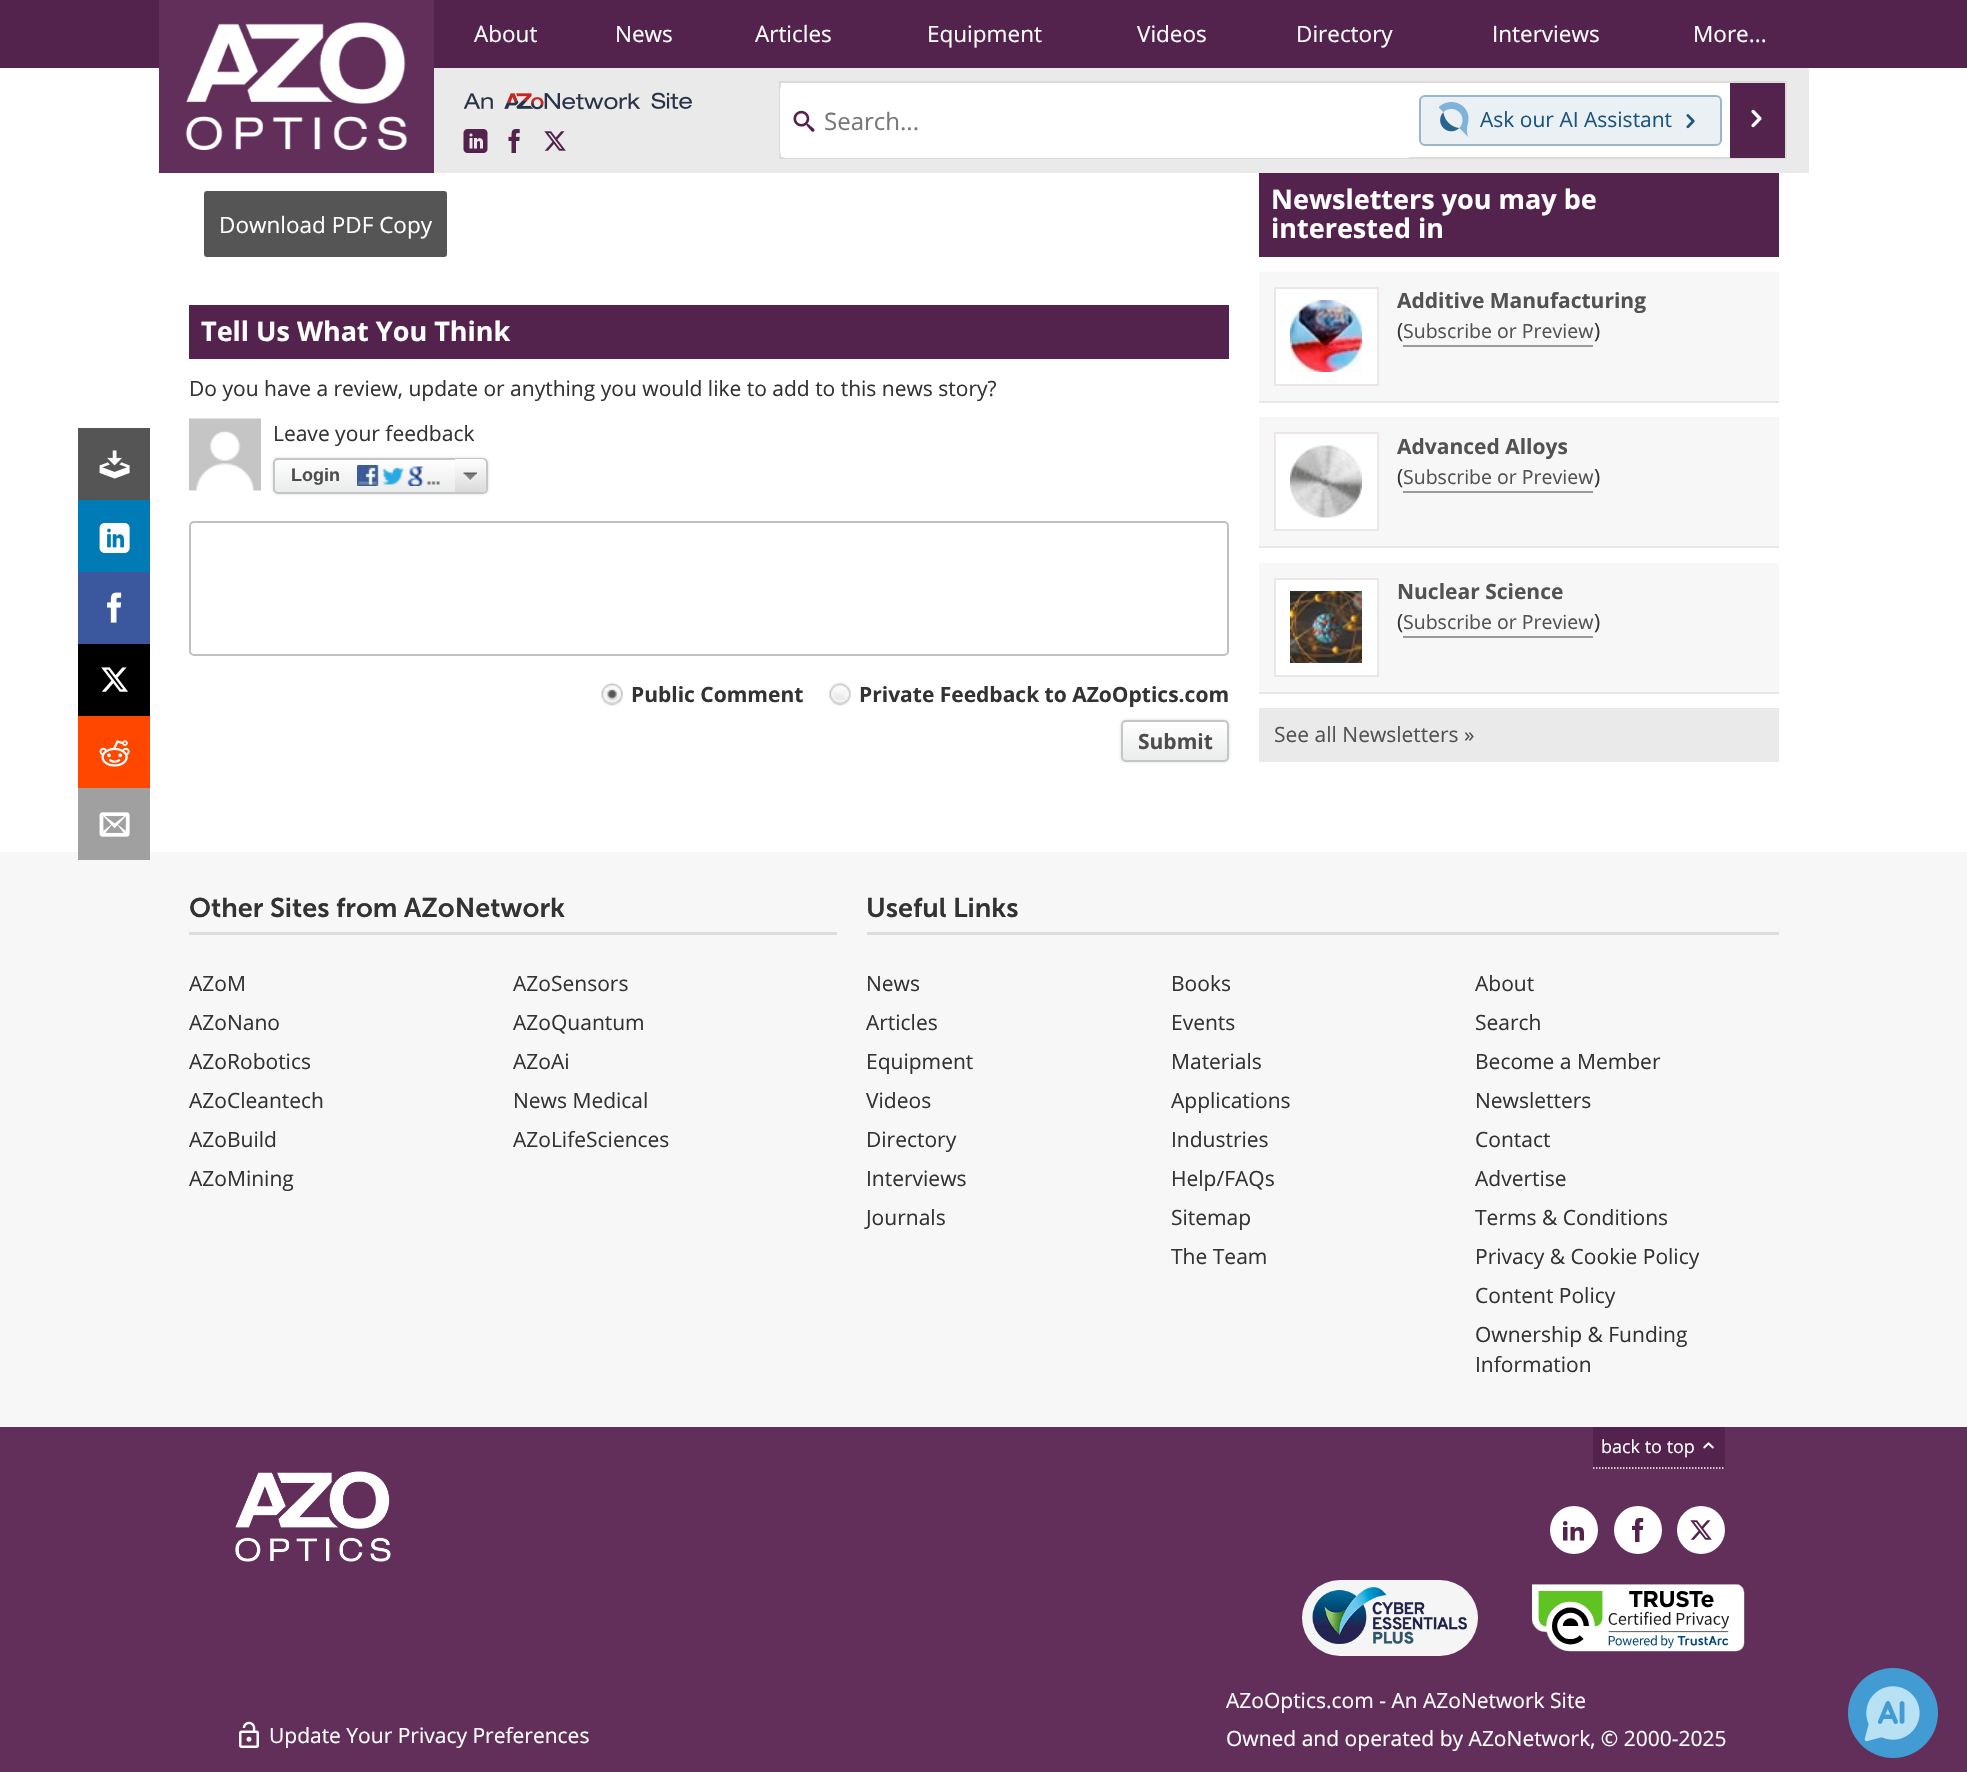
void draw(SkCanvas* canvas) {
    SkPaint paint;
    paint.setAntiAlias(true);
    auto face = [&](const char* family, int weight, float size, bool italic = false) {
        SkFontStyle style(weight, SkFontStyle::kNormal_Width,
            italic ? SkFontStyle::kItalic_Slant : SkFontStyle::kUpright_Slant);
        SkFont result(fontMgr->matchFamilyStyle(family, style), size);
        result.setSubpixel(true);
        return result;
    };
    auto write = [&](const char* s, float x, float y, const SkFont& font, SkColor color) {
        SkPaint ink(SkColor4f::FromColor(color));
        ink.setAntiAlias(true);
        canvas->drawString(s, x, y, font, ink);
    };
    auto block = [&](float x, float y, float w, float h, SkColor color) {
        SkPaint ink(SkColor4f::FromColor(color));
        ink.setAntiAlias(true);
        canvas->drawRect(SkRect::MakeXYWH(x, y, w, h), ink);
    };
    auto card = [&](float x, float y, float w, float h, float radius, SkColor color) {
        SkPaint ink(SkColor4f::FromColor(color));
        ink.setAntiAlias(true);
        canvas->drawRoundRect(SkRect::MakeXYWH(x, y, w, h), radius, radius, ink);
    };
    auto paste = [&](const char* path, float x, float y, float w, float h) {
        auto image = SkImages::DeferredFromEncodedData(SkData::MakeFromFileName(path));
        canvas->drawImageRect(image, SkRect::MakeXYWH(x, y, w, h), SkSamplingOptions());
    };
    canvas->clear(SK_ColorWHITE);
    block(0, 0, 1967, 68, SkColorSetRGB(83, 35, 77));
    block(434, 68, 1375, 105, SkColorSetRGB(234, 234, 234));
    block(159, 0, 275, 173, SkColorSetRGB(98, 47, 91));
    paste("pic1.png", 185, 22, 222, 128);
    auto kFont1 = face("Open Sans", 400, 22.5f);
    write("About", 474, 42, kFont1, SK_ColorWHITE);
    write("News", 615, 42, kFont1, SK_ColorWHITE);
    write("Articles", 755, 42, kFont1, SK_ColorWHITE);
    write("Equipment", 927, 42, kFont1, SK_ColorWHITE);
    write("Videos", 1137, 42, kFont1, SK_ColorWHITE);
    write("Directory", 1296, 42, kFont1, SK_ColorWHITE);
    write("Interviews", 1492, 42, kFont1, SK_ColorWHITE);
    write("More...", 1693, 42, kFont1, SK_ColorWHITE);
    paste("pic2.png", 464, 92, 228, 18);
    paste("pic3.png", 463, 129, 25, 24);
    paste("pic4.png", 508, 129, 12, 24);
    paste("pic5.png", 544, 131, 22, 20);
    block(781, 83, 949, 74, SK_ColorWHITE);
    paint.setStyle(SkPaint::kStroke_Style);
    paint.setStrokeWidth(2);
    paint.setColor(SkColorSetRGB(219, 219, 219));
    canvas->drawRect(SkRect::MakeXYWH(780, 82, 1006, 76), paint);
    card(780, 84, 633, 74, 6, SK_ColorWHITE);
    paste("pic6.png", 793, 110, 22, 22);
    auto kFont2 = face("Open Sans", 400, 24);
    write("Search...", 824, 130, kFont2, SkColorSetRGB(119, 119, 119));
    paint.setStyle(SkPaint::kFill_Style);
    paint.setColor(SkColorSetRGB(235, 240, 245));
    canvas->drawRoundRect(SkRect::MakeXYWH(1420, 96, 301, 49), 5, 5, paint);
    paint.setStyle(SkPaint::kStroke_Style);
    paint.setColor(SkColorSetRGB(151, 183, 206));
    canvas->drawRoundRect(SkRect::MakeXYWH(1420, 96, 301, 49), 5, 5, paint);
    paste("pic7.png", 1439, 102, 30, 35);
    auto kFont3 = face("Open Sans", 400, 21);
    write("Ask our AI Assistant", 1480, 127, kFont3, SkColorSetRGB(26, 86, 126));
    paste("pic8.png", 1686, 114, 9, 15);
    block(1730, 83, 55, 75, SkColorSetRGB(83, 35, 77));
    paste("pic9.png", 1751, 109, 11, 19);
    card(204, 191, 243, 66, 3, SkColorSetRGB(85, 85, 85));
    write("Download PDF Copy", 219, 233, kFont1, SK_ColorWHITE);
    block(78, 428, 72, 72, SkColorSetRGB(85, 85, 85));
    paste("pic10.png", 99, 450, 31, 29);
    block(78, 500, 72, 72, SkColorSetRGB(0, 123, 182));
    paste("pic11.png", 99, 523, 31, 30);
    block(78, 572, 72, 72, SkColorSetRGB(59, 87, 157));
    paste("pic12.png", 107, 592, 15, 31);
    block(78, 644, 72, 72, SK_ColorBLACK);
    paste("pic13.png", 101, 667, 27, 25);
    block(78, 716, 72, 72, SkColorSetRGB(255, 71, 0));
    paste("pic14.png", 99, 740, 31, 27);
    block(0, 852, 1967, 575, SkColorSetRGB(247, 247, 247));
    block(78, 788, 72, 72, SkColorSetRGB(160, 160, 160));
    paste("pic15.png", 99, 812, 31, 25);
    block(189, 305, 1040, 54, SkColorSetRGB(83, 35, 77));
    auto kFont4 = face("Open Sans", 700, 27);
    write("Tell Us What You Think", 201, 341, kFont4, SK_ColorWHITE);
    write("Do you have a review, update or anything you would like to add to this news story?", 189, 396, kFont3, SkColorSetRGB(51, 51, 51));
    paste("pic16.png", 189, 418, 72, 73);
    write("Leave your feedback", 273, 441, kFont3, SkColorSetRGB(51, 51, 51));
    paint.setStyle(SkPaint::kFill_Style);
    paint.setColor(SkColorSetARGB(38, 0, 0, 0));
    paint.setMaskFilter(SkMaskFilter::MakeBlur(kNormal_SkBlurStyle, 1.5f));
    canvas->drawRoundRect(SkRect::MakeXYWH(273, 458, 215, 36), 5, 5, paint);
    paint.setMaskFilter(nullptr);
    canvas->save();
    canvas->clipPath(SkPathBuilder().moveTo(278, 458).lineTo(483, 458).cubicTo(486, 458, 488, 460, 488, 463).lineTo(488, 489).cubicTo(488, 492, 486, 494, 483, 494).lineTo(278, 494).cubicTo(275, 494, 273, 492, 273, 489).lineTo(273, 463).cubicTo(273, 460, 275, 458, 278, 458).close().detach(), true);
    {
        const SkColor colors[] = {SK_ColorWHITE, SkColorSetRGB(234, 235, 235)};
        const float stops[] = {0, 1};
        const SkPoint ends[] = {{275, 459}, {275, 492}};
        paint.setShader(SkGradientShader::MakeLinear(ends, colors, stops, 2, SkTileMode::kClamp));
        paint.setAlpha(255);
    }
    canvas->drawRect(SkRect::MakeXYWH(273, 459, 215, 33), paint);
    canvas->restore();
    paint.setStyle(SkPaint::kStroke_Style);
    paint.setShader(nullptr);
    paint.setColor(SkColorSetRGB(197, 199, 199));
    canvas->drawRoundRect(SkRect::MakeXYWH(274, 459, 213, 34), 4, 4, paint);
    auto kFont5 = face("Liberation Sans", 700, 18);
    write("Login", 291, 481, kFont5, SkColorSetRGB(77, 77, 77));
    paste("pic17.png", 357, 465, 83, 21);
    paint.setStyle(SkPaint::kFill_Style);
    {
        const SkColor colors[] = {SK_ColorWHITE, SkColorSetRGB(218, 218, 218)};
        const float stops[] = {0, 1};
        const SkPoint ends[] = {{455, 459}, {455, 492}};
        paint.setShader(SkGradientShader::MakeLinear(ends, colors, stops, 2, SkTileMode::kClamp));
        paint.setAlpha(255);
    }
    canvas->drawPath(SkPathBuilder().moveTo(455, 459).lineTo(481, 459).cubicTo(484, 459, 486, 461, 486, 464).lineTo(486, 487).cubicTo(486, 490, 484, 492, 481, 492).lineTo(455, 492).close().detach(), paint);
    paste("pic18.png", 463, 472, 14, 10);
    paint.setStyle(SkPaint::kStroke_Style);
    paint.setShader(nullptr);
    paint.setColor(SkColorSetRGB(192, 192, 192));
    canvas->drawRoundRect(SkRect::MakeXYWH(190, 522, 1038, 133), 4, 4, paint);
    paste("pic19.png", 601, 682, 22, 24);
    auto kFont6 = face("Open Sans", 700, 21);
    write("Public Comment", 631, 702, kFont6, SkColorSetRGB(51, 51, 51));
    paste("pic20.png", 829, 682, 22, 24);
    write("Private Feedback to AZoOptics.com", 859, 702, kFont6, SkColorSetRGB(51, 51, 51));
    paint.setStyle(SkPaint::kFill_Style);
    paint.setColor(SkColorSetARGB(38, 0, 0, 0));
    paint.setMaskFilter(SkMaskFilter::MakeBlur(kNormal_SkBlurStyle, 1.5f));
    canvas->drawRoundRect(SkRect::MakeXYWH(1121, 720, 108, 42), 5, 5, paint);
    paint.setMaskFilter(nullptr);
    canvas->save();
    canvas->clipPath(SkPathBuilder().moveTo(1126, 720).lineTo(1224, 720).cubicTo(1227, 720, 1229, 722, 1229, 725).lineTo(1229, 757).cubicTo(1229, 760, 1227, 762, 1224, 762).lineTo(1126, 762).cubicTo(1123, 762, 1121, 760, 1121, 757).lineTo(1121, 725).cubicTo(1121, 722, 1123, 720, 1126, 720).close().detach(), true);
    {
        const SkColor colors[] = {SK_ColorWHITE, SkColorSetRGB(234, 235, 235)};
        const float stops[] = {0, 1};
        const SkPoint ends[] = {{1122, 722}, {1122, 761}};
        paint.setShader(SkGradientShader::MakeLinear(ends, colors, stops, 2, SkTileMode::kClamp));
        paint.setAlpha(255);
    }
    canvas->drawRect(SkRect::MakeXYWH(1121, 722, 108, 39), paint);
    canvas->restore();
    paint.setStyle(SkPaint::kStroke_Style);
    paint.setShader(nullptr);
    paint.setColor(SkColorSetRGB(197, 199, 199));
    canvas->drawRoundRect(SkRect::MakeXYWH(1122, 721, 106, 40), 4, 4, paint);
    write("Submit", 1138, 749, kFont6, SkColorSetRGB(77, 77, 77));
    block(1259, 173, 520, 84, SkColorSetRGB(83, 35, 77));
    write("Newsletters you may be", 1271, 209, kFont4, SK_ColorWHITE);
    write("interested in", 1271, 238, kFont4, SK_ColorWHITE);
    block(1259, 272, 520, 129, SkColorSetRGB(247, 247, 247));
    block(1259, 401, 520, 2, SkColorSetRGB(236, 230, 230));
    paint.setStyle(SkPaint::kFill_Style);
    paint.setColor(SK_ColorWHITE);
    canvas->drawRect(SkRect::MakeXYWH(1275, 288, 103, 97), paint);
    paint.setStyle(SkPaint::kStroke_Style);
    paint.setColor(SkColorSetRGB(236, 230, 230));
    canvas->drawRect(SkRect::MakeXYWH(1275, 288, 103, 97), paint);
    paste("pic21.png", 1290, 300, 72, 72);
    write("Additive Manufacturing", 1397, 308, kFont6, SkColorSetRGB(84, 81, 84));
    write("(", 1397, 338, kFont3, SkColorSetRGB(51, 51, 51));
    auto kFont7 = face("Open Sans", 400, 19.5f);
    write("Subscribe or Preview", 1403, 338, kFont7, SkColorSetRGB(84, 81, 84));
    block(1403, 345, 190, 2, SkColorSetRGB(154, 154, 154));
    write(")", 1594, 338, kFont3, SkColorSetRGB(51, 51, 51));
    block(1259, 417, 520, 129, SkColorSetRGB(247, 247, 247));
    block(1259, 546, 520, 2, SkColorSetRGB(236, 230, 230));
    paint.setStyle(SkPaint::kFill_Style);
    paint.setColor(SK_ColorWHITE);
    canvas->drawRect(SkRect::MakeXYWH(1275, 433, 103, 97), paint);
    paint.setStyle(SkPaint::kStroke_Style);
    paint.setColor(SkColorSetRGB(236, 230, 230));
    canvas->drawRect(SkRect::MakeXYWH(1275, 433, 103, 97), paint);
    paste("pic22.png", 1290, 445, 72, 73);
    write("Advanced Alloys", 1397, 454, kFont6, SkColorSetRGB(84, 81, 84));
    write("(", 1397, 484, kFont3, SkColorSetRGB(51, 51, 51));
    write("Subscribe or Preview", 1403, 484, kFont7, SkColorSetRGB(84, 81, 84));
    block(1403, 491, 190, 2, SkColorSetRGB(154, 154, 154));
    write(")", 1594, 484, kFont3, SkColorSetRGB(51, 51, 51));
    block(1259, 563, 520, 129, SkColorSetRGB(247, 247, 247));
    block(1259, 692, 520, 2, SkColorSetRGB(236, 230, 230));
    paint.setStyle(SkPaint::kFill_Style);
    paint.setColor(SK_ColorWHITE);
    canvas->drawRect(SkRect::MakeXYWH(1275, 579, 103, 97), paint);
    paint.setStyle(SkPaint::kStroke_Style);
    paint.setColor(SkColorSetRGB(236, 230, 230));
    canvas->drawRect(SkRect::MakeXYWH(1275, 579, 103, 97), paint);
    paste("pic23.png", 1290, 591, 72, 72);
    write("Nuclear Science", 1397, 599, kFont6, SkColorSetRGB(84, 81, 84));
    write("(", 1397, 629, kFont3, SkColorSetRGB(51, 51, 51));
    write("Subscribe or Preview", 1403, 629, kFont7, SkColorSetRGB(84, 81, 84));
    block(1403, 636, 190, 2, SkColorSetRGB(154, 154, 154));
    write(")", 1594, 629, kFont3, SkColorSetRGB(51, 51, 51));
    block(1259, 708, 520, 54, SkColorSetRGB(234, 234, 234));
    write("See all Newsletters »", 1274, 742, kFont3, SkColorSetRGB(84, 81, 84));
    block(0, 1427, 1967, 345, SkColorSetRGB(98, 47, 91));
    paste("pic24.png", 1848, 1668, 90, 90);
    block(189, 932, 648, 3, SkColorSetRGB(221, 221, 221));
    auto kFont8 = face("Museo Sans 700", 600, 27);
    write("Other Sites from AZoNetwork", 189, 917, kFont8, SkColorSetRGB(51, 51, 51));
    write("AZoM", 189, 991, kFont3, SkColorSetRGB(51, 51, 51));
    write("AZoNano", 189, 1030, kFont3, SkColorSetRGB(51, 51, 51));
    write("AZoRobotics", 189, 1069, kFont3, SkColorSetRGB(51, 51, 51));
    write("AZoCleantech", 189, 1108, kFont3, SkColorSetRGB(51, 51, 51));
    write("AZoBuild", 189, 1147, kFont3, SkColorSetRGB(51, 51, 51));
    write("AZoMining", 189, 1186, kFont3, SkColorSetRGB(51, 51, 51));
    write("AZoSensors", 513, 991, kFont3, SkColorSetRGB(51, 51, 51));
    write("AZoQuantum", 513, 1030, kFont3, SkColorSetRGB(51, 51, 51));
    write("AZoAi", 513, 1069, kFont3, SkColorSetRGB(51, 51, 51));
    write("News Medical", 513, 1108, kFont3, SkColorSetRGB(51, 51, 51));
    write("AZoLifeSciences", 513, 1147, kFont3, SkColorSetRGB(51, 51, 51));
    block(867, 932, 912, 3, SkColorSetRGB(221, 221, 221));
    write("Useful Links", 866, 917, kFont8, SkColorSetRGB(51, 51, 51));
    write("News", 866, 991, kFont3, SkColorSetRGB(51, 51, 51));
    write("Articles", 866, 1030, kFont3, SkColorSetRGB(51, 51, 51));
    write("Equipment", 866, 1069, kFont3, SkColorSetRGB(51, 51, 51));
    write("Videos", 866, 1108, kFont3, SkColorSetRGB(51, 51, 51));
    write("Directory", 866, 1147, kFont3, SkColorSetRGB(51, 51, 51));
    write("Interviews", 866, 1186, kFont3, SkColorSetRGB(51, 51, 51));
    write("Journals", 866, 1225, kFont3, SkColorSetRGB(51, 51, 51));
    write("Books", 1171, 991, kFont3, SkColorSetRGB(51, 51, 51));
    write("Events", 1171, 1030, kFont3, SkColorSetRGB(51, 51, 51));
    write("Materials", 1171, 1069, kFont3, SkColorSetRGB(51, 51, 51));
    write("Applications", 1171, 1108, kFont3, SkColorSetRGB(51, 51, 51));
    write("Industries", 1171, 1147, kFont3, SkColorSetRGB(51, 51, 51));
    write("Help/FAQs", 1171, 1186, kFont3, SkColorSetRGB(51, 51, 51));
    write("Sitemap", 1171, 1225, kFont3, SkColorSetRGB(51, 51, 51));
    write("The Team", 1171, 1264, kFont3, SkColorSetRGB(51, 51, 51));
    write("About", 1475, 991, kFont3, SkColorSetRGB(51, 51, 51));
    write("Search", 1475, 1030, kFont3, SkColorSetRGB(51, 51, 51));
    write("Become a Member", 1475, 1069, kFont3, SkColorSetRGB(51, 51, 51));
    write("Newsletters", 1475, 1108, kFont3, SkColorSetRGB(51, 51, 51));
    write("Contact", 1475, 1147, kFont3, SkColorSetRGB(51, 51, 51));
    write("Advertise", 1475, 1186, kFont3, SkColorSetRGB(51, 51, 51));
    write("Terms & Conditions", 1475, 1225, kFont3, SkColorSetRGB(51, 51, 51));
    write("Privacy & Cookie Policy", 1475, 1264, kFont3, SkColorSetRGB(51, 51, 51));
    write("Content Policy", 1475, 1303, kFont3, SkColorSetRGB(51, 51, 51));
    write("Ownership & Funding", 1475, 1342, kFont3, SkColorSetRGB(51, 51, 51));
    write("Information", 1475, 1372, kFont3, SkColorSetRGB(51, 51, 51));
    block(1593, 1427, 132, 42, SkColorSetRGB(83, 35, 77));
    paint.setStrokeWidth(1.5f);
    paint.setColor(SK_ColorWHITE);
    paint.setPathEffect(SkDashPathEffect::Make({{1.5f, 1.5f}}, 0));
    canvas->drawPath(SkPathBuilder().moveTo(1593, 1468).lineTo(1725, 1468).detach(), paint);
    paint.setPathEffect(nullptr);
    auto kFont9 = face("Open Sans", 400, 18);
    write("back to top", 1601, 1453, kFont9, SK_ColorWHITE);
    paste("pic25.png", 1703, 1442, 11, 7);
    paste("pic26.png", 235, 1471, 156, 91);
    paste("pic27.png", 239, 1721, 20, 27);
    write("Update Your Privacy Preferences", 269, 1743, kFont3, SK_ColorWHITE);
    paint.setStyle(SkPaint::kFill_Style);
    canvas->drawCircle(1574, 1530, 24, paint);
    paste("pic28.png", 1563, 1521, 21, 20);
    canvas->drawCircle(1638, 1530, 24, paint);
    paste("pic29.png", 1632, 1518, 12, 24);
    canvas->drawCircle(1701, 1530, 24, paint);
    paste("pic30.png", 1690, 1520, 22, 20);
    card(1302, 1580, 176, 76, 38, SkColorSetRGB(245, 245, 245));
    paste("pic31.png", 1312, 1587, 155, 57);
    paste("pic32.png", 1532, 1584, 213, 68);
    write("AZoOptics.com - An AZoNetwork Site", 1226, 1708, kFont3, SK_ColorWHITE);
    write("Owned and operated by AZoNetwork, © 2000-2025", 1226, 1746, kFont3, SK_ColorWHITE);
}
